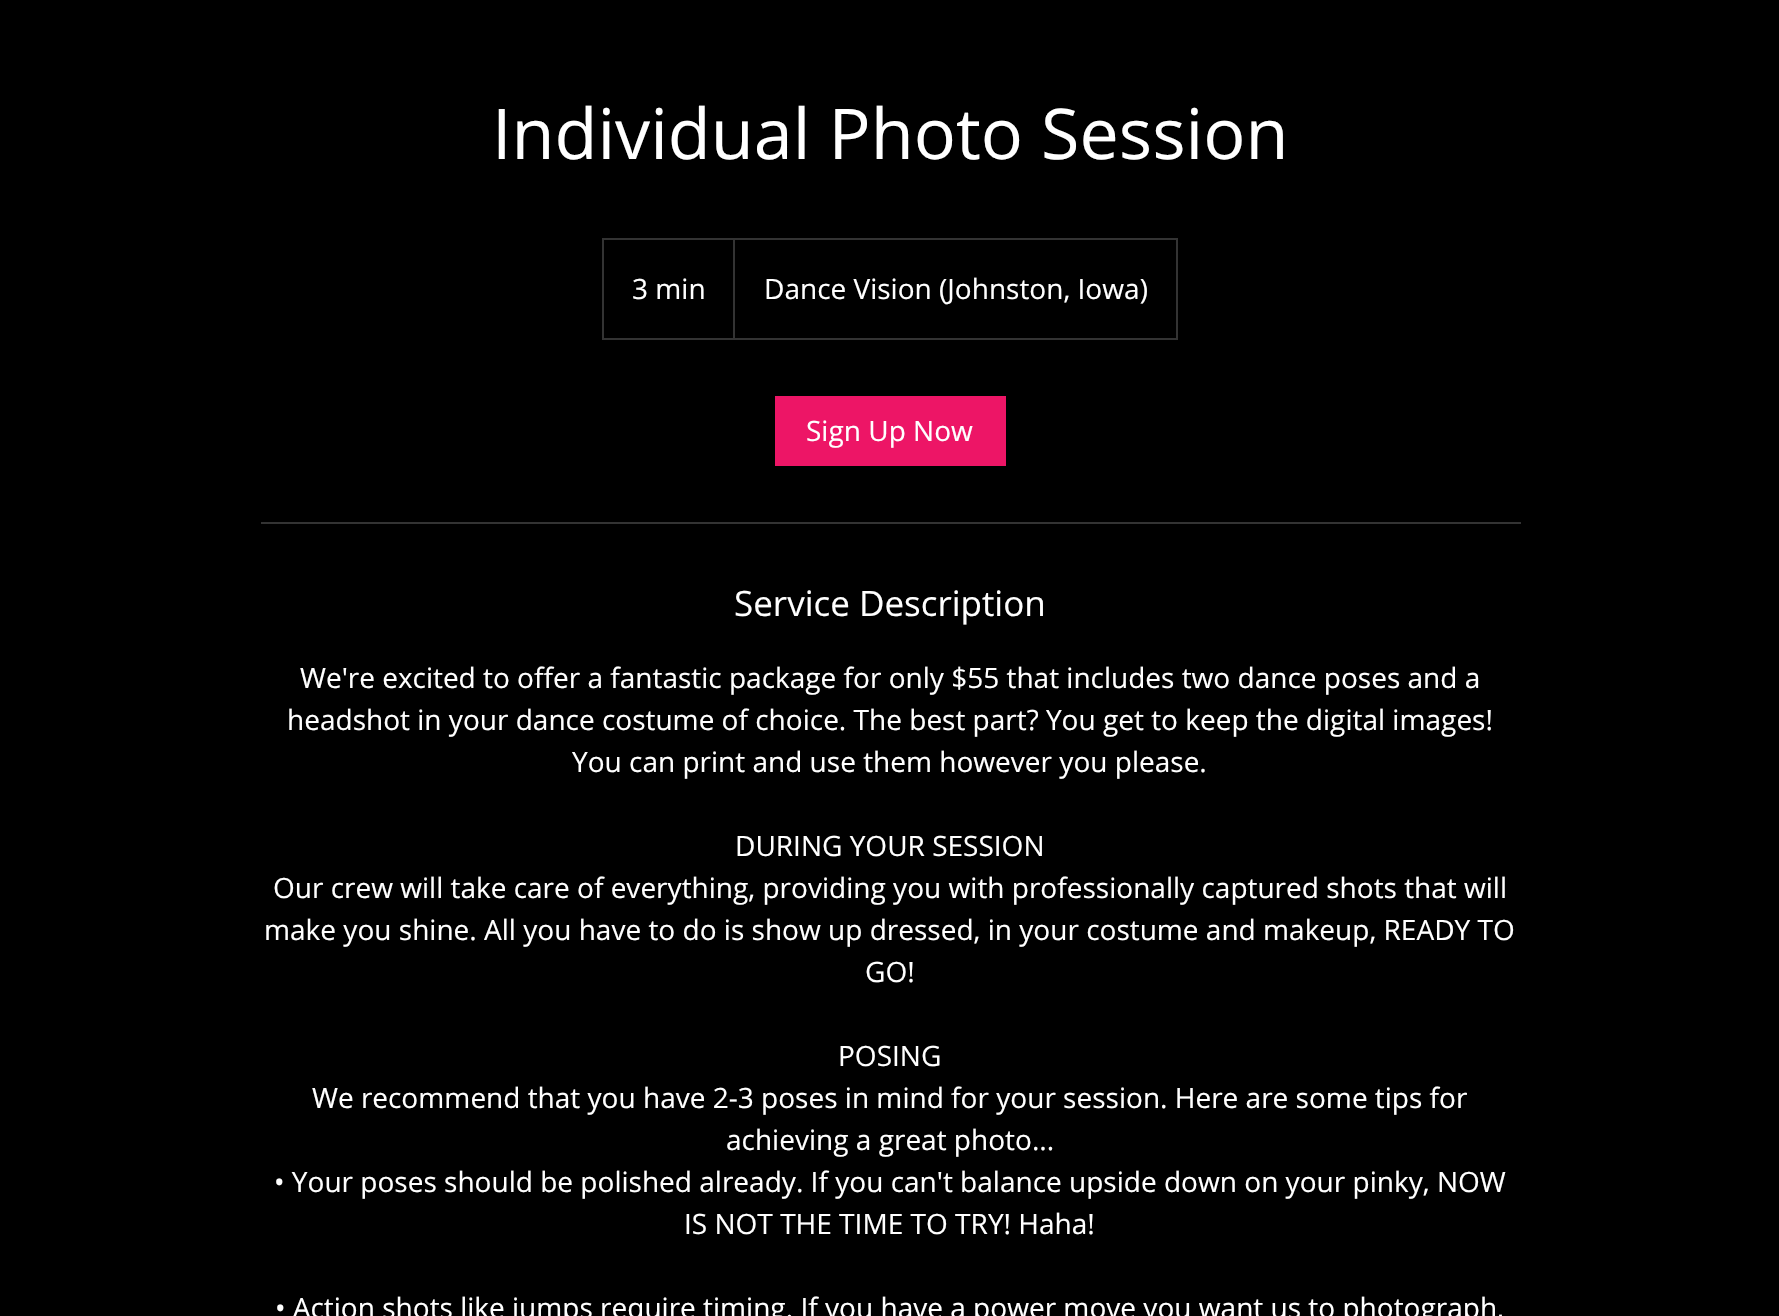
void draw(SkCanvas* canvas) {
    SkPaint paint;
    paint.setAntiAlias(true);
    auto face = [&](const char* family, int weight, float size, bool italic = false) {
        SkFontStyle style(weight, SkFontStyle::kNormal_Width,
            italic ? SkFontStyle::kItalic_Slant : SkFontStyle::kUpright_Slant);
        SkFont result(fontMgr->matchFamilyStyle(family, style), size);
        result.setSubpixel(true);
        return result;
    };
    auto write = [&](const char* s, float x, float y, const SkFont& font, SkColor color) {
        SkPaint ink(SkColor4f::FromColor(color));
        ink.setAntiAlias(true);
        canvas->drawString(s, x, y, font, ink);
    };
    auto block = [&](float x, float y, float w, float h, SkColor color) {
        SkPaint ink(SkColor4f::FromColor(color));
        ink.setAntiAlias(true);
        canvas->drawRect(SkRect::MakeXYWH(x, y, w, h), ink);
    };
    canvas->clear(SK_ColorBLACK);
    auto kFont1 = face("Open Sans", 400, 70);
    write("Individual Photo Session", 492, 159, kFont1, SK_ColorWHITE);
    paint.setStyle(SkPaint::kStroke_Style);
    paint.setStrokeWidth(2);
    paint.setColor(SkColorSetRGB(51, 51, 51));
    canvas->drawRect(SkRect::MakeXYWH(603, 239, 574, 100), paint);
    auto kFont2 = face("Open Sans", 400, 28);
    write("3 min", 632, 299, kFont2, SK_ColorWHITE);
    canvas->save();
    canvas->clipRect(SkRect::MakeXYWH(604, 240, 572, 98));
    paint.setStyle(SkPaint::kFill_Style);
    canvas->drawPath(SkPathBuilder().moveTo(733, 338).lineTo(733, 238).lineTo(735, 240).lineTo(735, 338).close().detach(), paint);
    canvas->restore();
    write("Dance Vision (Johnston, Iowa)", 764, 299, kFont2, SK_ColorWHITE);
    block(775, 396, 231, 70, SkColorSetRGB(237, 21, 102));
    write("Sign Up Now", 806, 441, kFont2, SK_ColorWHITE);
    block(261, 522, 1260, 2, SkColorSetRGB(51, 51, 51));
    auto kFont3 = face("Open Sans", 400, 35);
    write("Service Description", 734, 616, kFont3, SK_ColorWHITE);
    write("We're excited to offer a fantastic package for only $55 that includes two dance poses and a", 300, 688, kFont2, SK_ColorWHITE);
    write("headshot in your dance costume of choice. The best part? You get to keep the digital images!", 287, 730, kFont2, SK_ColorWHITE);
    write("You can print and use them however you please.", 572, 772, kFont2, SK_ColorWHITE);
    write("DURING YOUR SESSION", 735, 856, kFont2, SK_ColorWHITE);
    write("Our crew will take care of everything, providing you with professionally captured shots that will", 273, 898, kFont2, SK_ColorWHITE);
    write("make you shine. All you have to do is show up dressed, in your costume and makeup, READY TO", 264, 940, kFont2, SK_ColorWHITE);
    write("GO!", 865, 982, kFont2, SK_ColorWHITE);
    write("POSING", 838, 1066, kFont2, SK_ColorWHITE);
    write("We recommend that you have 2-3 poses in mind for your session. Here are some tips for", 312, 1108, kFont2, SK_ColorWHITE);
    write("achieving a great photo...", 726, 1150, kFont2, SK_ColorWHITE);
    write("• Your poses should be polished already. If you can't balance upside down on your pinky, NOW", 274, 1192, kFont2, SK_ColorWHITE);
    write("IS NOT THE TIME TO TRY! Haha!", 684, 1234, kFont2, SK_ColorWHITE);
    write("• Action shots like jumps require timing. If you have a power move you want us to photograph,", 275, 1318, kFont2, SK_ColorWHITE);
}
